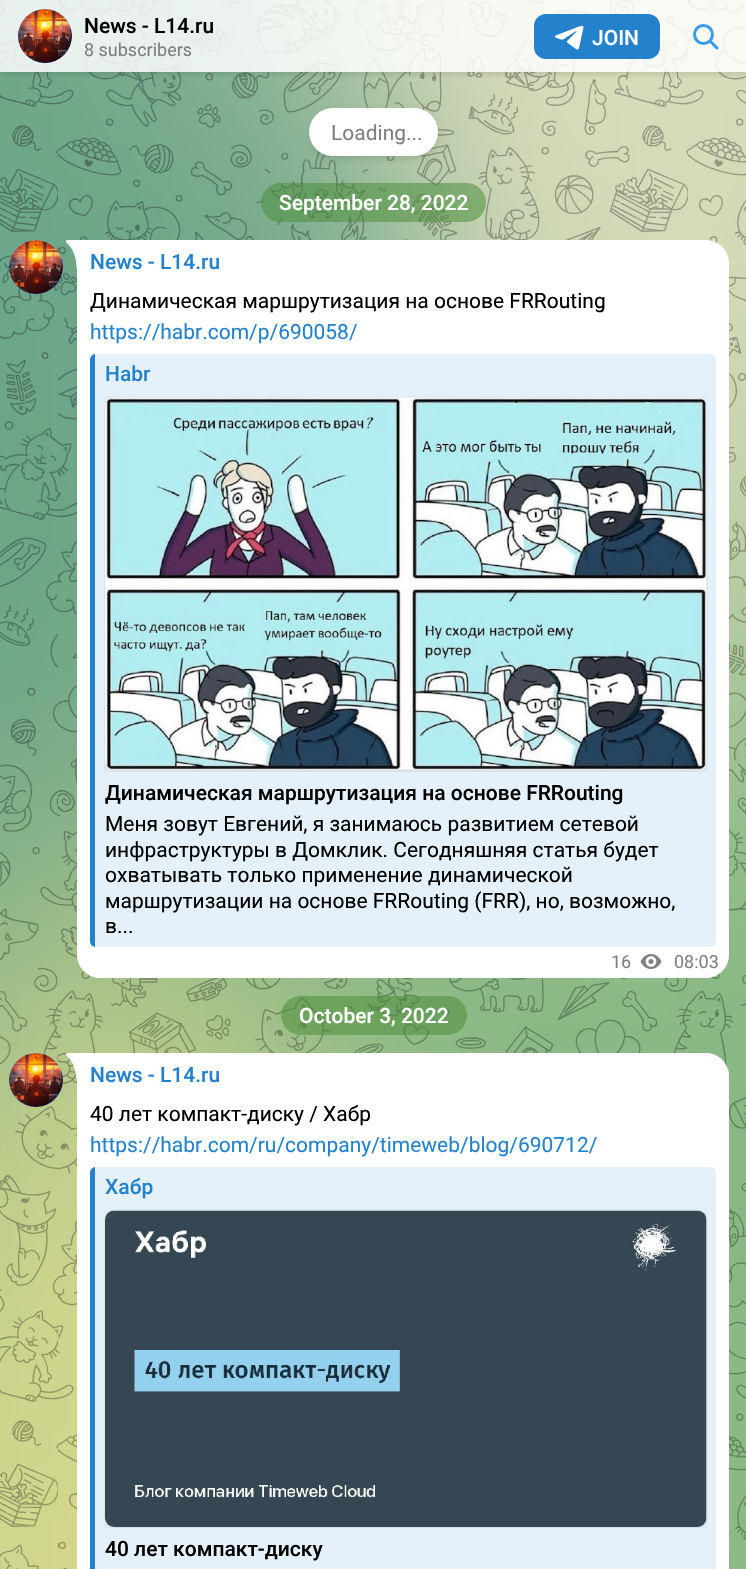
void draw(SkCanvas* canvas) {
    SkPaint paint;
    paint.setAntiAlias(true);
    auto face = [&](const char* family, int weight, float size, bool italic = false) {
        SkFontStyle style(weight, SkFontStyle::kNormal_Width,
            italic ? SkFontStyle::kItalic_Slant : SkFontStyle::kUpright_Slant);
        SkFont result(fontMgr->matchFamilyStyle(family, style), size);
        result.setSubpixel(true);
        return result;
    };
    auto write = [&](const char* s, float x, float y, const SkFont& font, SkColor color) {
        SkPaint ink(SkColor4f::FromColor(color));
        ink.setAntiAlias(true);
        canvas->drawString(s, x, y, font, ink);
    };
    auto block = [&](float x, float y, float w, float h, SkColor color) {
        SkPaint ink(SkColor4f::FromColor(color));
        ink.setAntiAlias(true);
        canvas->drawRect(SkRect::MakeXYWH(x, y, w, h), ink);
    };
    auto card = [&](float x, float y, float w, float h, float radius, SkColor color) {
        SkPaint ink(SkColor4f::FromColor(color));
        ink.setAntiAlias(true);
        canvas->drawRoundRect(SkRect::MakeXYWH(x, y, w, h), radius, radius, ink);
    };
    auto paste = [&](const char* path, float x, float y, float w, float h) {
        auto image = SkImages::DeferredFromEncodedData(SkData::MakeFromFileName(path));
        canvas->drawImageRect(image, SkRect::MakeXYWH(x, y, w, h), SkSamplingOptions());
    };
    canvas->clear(SK_ColorWHITE);
    paste("pic1.png", 0, 0, 746, 1569);
    paste("pic2.png", 0, 0, 746, 1569);
    canvas->save();
    canvas->clipRect(SkRect::MakeXYWH(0, 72, 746, 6));
    paint.setColor(SkColorSetARGB(26, 0, 0, 0));
    paint.setMaskFilter(SkMaskFilter::MakeBlur(kNormal_SkBlurStyle, 3));
    canvas->drawRect(SkRect::MakeXYWH(0, 3, 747, 72), paint);
    paint.setMaskFilter(nullptr);
    canvas->restore();
    block(0, 0, 746, 72, SkColorSetARGB(214, 255, 255, 255));
    {
        const SkColor colors[] = {SkColorSetRGB(130, 177, 255), SkColorSetRGB(102, 95, 255)};
        const float stops[] = {0, 1};
        const SkPoint ends[] = {{45, 9}, {45, 63}};
        paint.setShader(SkGradientShader::MakeLinear(ends, colors, stops, 2, SkTileMode::kClamp));
        paint.setAlpha(255);
    }
    canvas->drawCircle(45, 36, 27, paint);
    paste("pic3.png", 18, 9, 54, 54);
    auto kFont1 = face("Roboto", 500, 21);
    write("News - L14.ru", 84, 33, kFont1, SK_ColorBLACK);
    auto kFont2 = face("Roboto", 400, 18);
    write("8 subscribers", 84, 56, kFont2, SkColorSetRGB(125, 127, 129));
    card(534, 14, 126, 45, 12, SkColorSetRGB(36, 129, 204));
    paste("pic4.png", 555, 26, 29, 24);
    write("JOIN", 592, 45, kFont1, SK_ColorWHITE);
    paint.setStyle(SkPaint::kStroke_Style);
    paint.setStrokeWidth(3);
    paint.setShader(nullptr);
    paint.setColor(SkColorSetRGB(56, 156, 233));
    canvas->drawCircle(703.5f, 34.5f, 9, paint);
    paint.setStrokeCap(SkPaint::kRound_Cap);
    canvas->drawPath(SkPathBuilder().moveTo(710, 41).lineTo(717, 48).detach(), paint);
    paint.setStyle(SkPaint::kFill_Style);
    paint.setColor(SkColorSetARGB(26, 0, 0, 0));
    paint.setMaskFilter(SkMaskFilter::MakeBlur(kNormal_SkBlurStyle, 3));
    canvas->drawRoundRect(SkRect::MakeXYWH(309, 111, 129, 48), 24, 24, paint);
    paint.setMaskFilter(nullptr);
    card(309, 108, 129, 48, 24, SK_ColorWHITE);
    auto kFont3 = face("Roboto", 400, 21);
    write("Loading...", 331, 140, kFont3, SkColorSetRGB(125, 127, 129));
    card(261, 183, 225, 39, 19.5f, SkColorSetARGB(140, 74, 142, 58));
    write("September 28, 2022", 279, 210, kFont1, SK_ColorWHITE);
    {
        const SkColor colors[] = {SkColorSetRGB(130, 177, 255), SkColorSetRGB(102, 95, 255)};
        const float stops[] = {0, 1};
        const SkPoint ends[] = {{36, 240}, {36, 294}};
        paint.setShader(SkGradientShader::MakeLinear(ends, colors, stops, 2, SkTileMode::kClamp));
        paint.setAlpha(255);
    }
    canvas->drawCircle(36, 267, 27, paint);
    paste("pic5.png", 9, 240, 54, 54);
    paint.setShader(nullptr);
    paint.setColor(SK_ColorWHITE);
    canvas->drawPath(SkPathBuilder().moveTo(77, 240).lineTo(706, 240).cubicTo(718.5f, 240, 729, 250.5f, 729, 263).lineTo(729, 955).cubicTo(729, 967.5f, 718.5f, 978, 706, 978).lineTo(100, 978).cubicTo(87.5f, 978, 77, 967.5f, 77, 955).close().detach(), paint);
    paste("pic6.png", 66, 240, 11, 29);
    write("News - L14.ru", 90, 269, kFont1, SkColorSetRGB(36, 129, 204));
    write("Динамическая маршрутизация на основе FRRouting", 90, 308, kFont3, SK_ColorBLACK);
    write("https://habr.com/p/690058/", 90, 339, kFont3, SkColorSetRGB(36, 129, 204));
    card(90, 354, 626, 593, 6, SkColorSetRGB(229, 241, 250));
    canvas->save();
    canvas->clipPath(SkPathBuilder().moveTo(96, 354).lineTo(710, 354).cubicTo(713.5f, 354, 716, 356.5f, 716, 360).lineTo(716, 941).cubicTo(716, 944.5f, 713.5f, 947, 710, 947).lineTo(96, 947).cubicTo(92.5f, 947, 90, 944.5f, 90, 941).lineTo(90, 360).cubicTo(90, 356.5f, 92.5f, 354, 96, 354).close().detach(), true);
    block(90, 354, 5, 593, SkColorSetRGB(36, 129, 204));
    canvas->restore();
    write("Habr", 105, 381, kFont1, SkColorSetRGB(36, 129, 204));
    paste("pic7.png", 104, 396, 604, 376);
    write("Динамическая маршрутизация на основе FRRouting", 105, 800, kFont1, SK_ColorBLACK);
    write("Меня зовут Евгений, я занимаюсь развитием сетевой", 105, 831, kFont3, SK_ColorBLACK);
    write("инфраструктуры в Домклик. Сегодняшняя статья будет", 105, 857, kFont3, SK_ColorBLACK);
    write("охватывать только применение динамической", 105, 882, kFont3, SK_ColorBLACK);
    write("маршрутизации на основе FRRouting (FRR), но, возможно,", 105, 908, kFont3, SK_ColorBLACK);
    write("в...", 105, 933, kFont3, SK_ColorBLACK);
    write("16", 611, 968, kFont2, SkColorSetRGB(125, 127, 129));
    paste("pic8.png", 640, 954, 22, 15);
    write("08:03", 674, 968, kFont2, SkColorSetRGB(125, 127, 129));
    card(281, 996, 186, 39, 19.5f, SkColorSetARGB(140, 74, 142, 58));
    write("October 3, 2022", 299, 1023, kFont1, SK_ColorWHITE);
    {
        const SkColor colors[] = {SkColorSetRGB(130, 177, 255), SkColorSetRGB(102, 95, 255)};
        const float stops[] = {0, 1};
        const SkPoint ends[] = {{36, 1053}, {36, 1107}};
        paint.setShader(SkGradientShader::MakeLinear(ends, colors, stops, 2, SkTileMode::kClamp));
        paint.setAlpha(255);
    }
    canvas->drawCircle(36, 1080, 27, paint);
    paste("pic9.png", 9, 1053, 54, 54);
    paint.setShader(nullptr);
    paint.setColor(SK_ColorWHITE);
    canvas->drawPath(SkPathBuilder().moveTo(77, 1053).lineTo(706, 1053).cubicTo(718.5f, 1053, 729, 1063.5f, 729, 1076).lineTo(729, 1569).cubicTo(729, 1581.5f, 718.5f, 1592, 706, 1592).lineTo(100, 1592).cubicTo(87.5f, 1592, 77, 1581.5f, 77, 1569).close().detach(), paint);
    paste("pic10.png", 66, 1053, 11, 29);
    write("News - L14.ru", 90, 1082, kFont1, SkColorSetRGB(36, 129, 204));
    write("40 лет компакт-диску / Хабр", 90, 1121, kFont3, SK_ColorBLACK);
    write("https://habr.com/ru/company/timeweb/blog/690712/", 90, 1152, kFont3, SkColorSetRGB(36, 129, 204));
    card(90, 1167, 626, 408, 6, SkColorSetRGB(229, 241, 250));
    canvas->save();
    canvas->clipPath(SkPathBuilder().moveTo(96, 1167).lineTo(710, 1167).cubicTo(713.5f, 1167, 716, 1169.5f, 716, 1173).lineTo(716, 1673).cubicTo(716, 1676.5f, 713.5f, 1679, 710, 1679).lineTo(96, 1679).cubicTo(92.5f, 1679, 90, 1676.5f, 90, 1673).lineTo(90, 1173).cubicTo(90, 1169.5f, 92.5f, 1167, 96, 1167).close().detach(), true);
    block(90, 1167, 5, 402, SkColorSetRGB(36, 129, 204));
    canvas->restore();
    write("Хабр", 105, 1194, kFont1, SkColorSetRGB(36, 129, 204));
    paste("pic11.png", 104, 1209, 604, 319);
    write("40 лет компакт-диску", 105, 1556, kFont1, SK_ColorBLACK);
}
